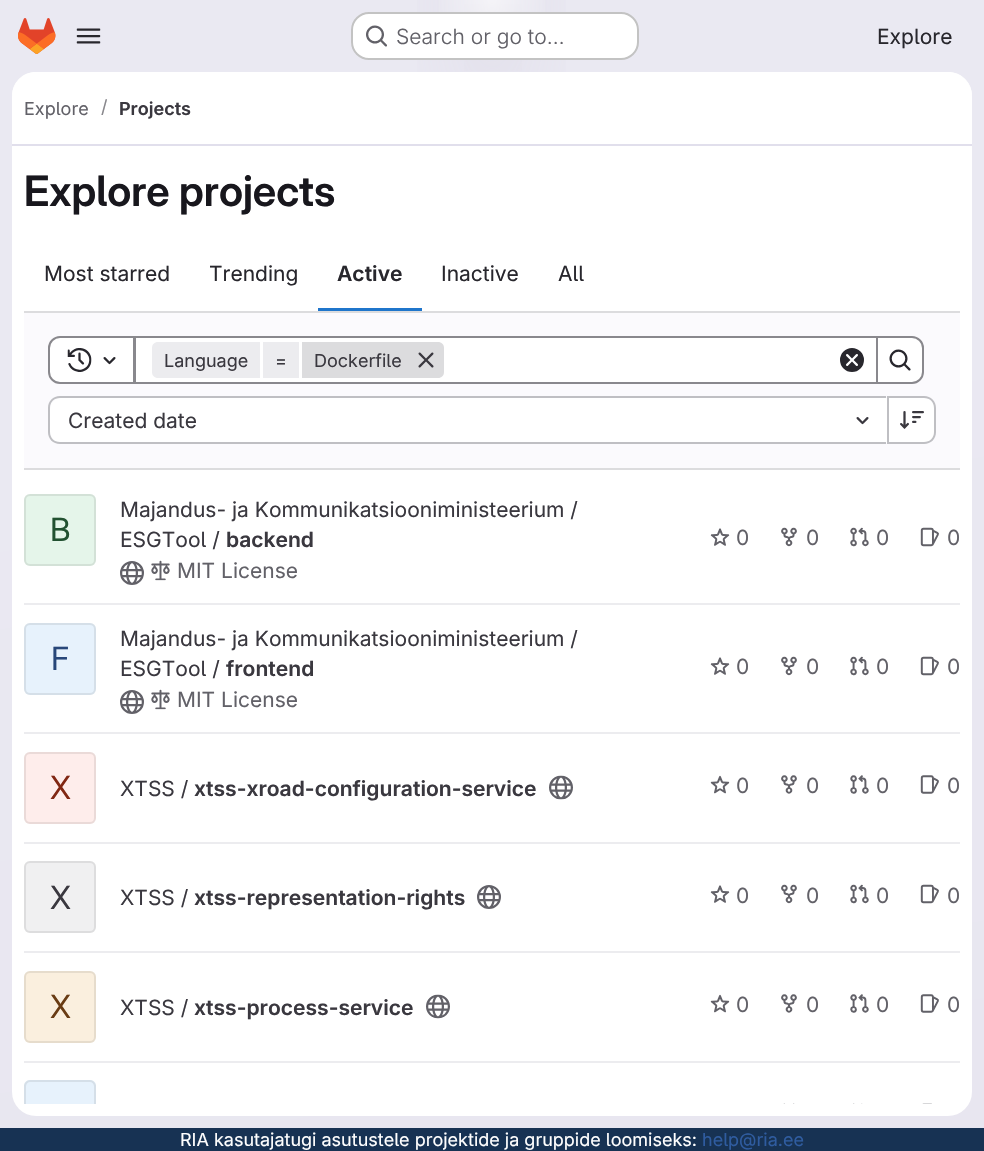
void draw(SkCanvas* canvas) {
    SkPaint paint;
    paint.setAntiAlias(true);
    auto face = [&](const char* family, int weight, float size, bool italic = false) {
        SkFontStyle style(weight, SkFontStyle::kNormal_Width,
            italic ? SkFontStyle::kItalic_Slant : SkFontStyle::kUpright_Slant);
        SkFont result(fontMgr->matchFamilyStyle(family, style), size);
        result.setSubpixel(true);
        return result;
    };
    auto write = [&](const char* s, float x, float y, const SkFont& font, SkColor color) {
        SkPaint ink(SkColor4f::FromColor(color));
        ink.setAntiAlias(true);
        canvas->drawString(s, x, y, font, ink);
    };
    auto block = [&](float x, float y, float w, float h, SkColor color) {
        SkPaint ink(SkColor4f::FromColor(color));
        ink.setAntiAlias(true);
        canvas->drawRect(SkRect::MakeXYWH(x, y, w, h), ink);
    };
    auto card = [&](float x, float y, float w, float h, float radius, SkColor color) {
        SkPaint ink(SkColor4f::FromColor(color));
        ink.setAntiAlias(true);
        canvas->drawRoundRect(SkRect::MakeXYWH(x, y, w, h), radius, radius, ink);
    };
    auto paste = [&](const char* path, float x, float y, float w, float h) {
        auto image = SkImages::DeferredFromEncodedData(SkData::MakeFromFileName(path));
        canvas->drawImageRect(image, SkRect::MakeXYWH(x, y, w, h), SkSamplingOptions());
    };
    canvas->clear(SK_ColorWHITE);
    {
        const SkColor colors[] = {SkColorSetRGB(232, 230, 240), SkColorSetRGB(234, 233, 242)};
        const float stops[] = {0, 0.7f};
        const SkPoint ends[] = {{605, 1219}, {379, -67}};
        paint.setShader(SkGradientShader::MakeLinear(ends, colors, stops, 2, SkTileMode::kClamp));
        paint.setAlpha(255);
    }
    canvas->drawRect(SkRect::MakeXYWH(0, 0, 984, 1128), paint);
    {
        const SkColor colors[] = {SkColorSetRGB(228, 226, 237), SkColorSetARGB(0, 228, 226, 237)};
        const float stops[] = {0, 0.21f};
        SkMatrix m = SkMatrix::Translate(492, 0).preScale(492, 1152);
        paint.setShader(SkGradientShader::MakeRadial({0, 0}, 1, colors, stops, 2, SkTileMode::kClamp, 0, &m));
        paint.setAlpha(255);
    }
    canvas->drawRect(SkRect::MakeXYWH(417, 0, 149, 72), paint);
    {
        const SkColor colors[] = {SkColorSetRGB(228, 226, 236), SkColorSetARGB(0, 228, 226, 236)};
        const float stops[] = {0, 0.15f};
        SkMatrix m = SkMatrix::Translate(492, 0).preScale(492, 1152);
        paint.setShader(SkGradientShader::MakeRadial({0, 0}, 1, colors, stops, 2, SkTileMode::kClamp, 0, &m));
        paint.setAlpha(255);
    }
    canvas->drawRect(SkRect::MakeXYWH(464, 4, 58, 67), paint);
    {
        const SkColor colors[] = {SkColorSetARGB(153, 255, 255, 255), SkColorSetARGB(0, 255, 255, 255)};
        const float stops[] = {0, 0.05f};
        paint.setShader(SkGradientShader::MakeRadial({492, 0}, 1253, colors, stops, 2, SkTileMode::kClamp));
        paint.setAlpha(255);
    }
    canvas->drawRect(SkRect::MakeXYWH(439, 0, 106, 12), paint);
    paste("pic1.png", 18, 18, 38, 36);
    paste("pic2.png", 76, 28, 25, 16);
    card(351, 12, 288, 48, 18, SK_ColorWHITE);
    paint.setStyle(SkPaint::kStroke_Style);
    paint.setStrokeWidth(2);
    paint.setShader(nullptr);
    paint.setColor(SkColorSetARGB(61, 5, 5, 6));
    canvas->drawRoundRect(SkRect::MakeXYWH(352, 13, 286, 46), 17, 17, paint);
    paste("pic3.png", 366, 25, 21, 22);
    auto kFont1 = face("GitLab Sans", 300, 21);
    write("Search or go to…", 396, 44, kFont1, SkColorSetRGB(98, 97, 104));
    auto kFont2 = face("GitLab Sans", 400, 21);
    write("Explore", 877, 44, kFont2, SkColorSetRGB(40, 39, 45));
    card(12, 72, 960, 1044, 24, SK_ColorWHITE);
    paint.setStyle(SkPaint::kFill_Style);
    paint.setColor(SK_ColorWHITE);
    canvas->drawPath(SkPathBuilder().moveTo(36, 72).lineTo(948, 72).cubicTo(961.5f, 72, 972, 82.5f, 972, 96).lineTo(972, 146).lineTo(12, 146).lineTo(12, 96).cubicTo(12, 82.5f, 22.5f, 72, 36, 72).close().detach(), paint);
    block(12, 144, 960, 2, SkColorSetRGB(225, 223, 236));
    auto kFont3 = face("GitLab Sans", 400, 18);
    write("Explore", 24, 115, kFont3, SkColorSetRGB(98, 97, 104));
    write("/", 101, 113, kFont3, SkColorSetRGB(137, 136, 141));
    auto kFont4 = face("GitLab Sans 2", 600, 18);
    write("Projects", 119, 115, kFont4, SkColorSetRGB(58, 56, 63));
    auto kFont5 = face("GitLab Sans", 600, 42);
    write("Explore projects", 24, 206, kFont5, SkColorSetRGB(24, 23, 29));
    write("Most starred", 44, 281, kFont2, SkColorSetRGB(40, 39, 45));
    write("Trending", 209, 281, kFont2, SkColorSetRGB(40, 39, 45));
    auto kFont6 = face("GitLab Sans 2", 600, 21);
    write("Active", 337, 281, kFont6, SkColorSetRGB(40, 39, 45));
    block(318, 308, 104, 3, SkColorSetRGB(31, 117, 203));
    write("Inactive", 441, 281, kFont2, SkColorSetRGB(40, 39, 45));
    write("All", 558, 281, kFont2, SkColorSetRGB(40, 39, 45));
    block(24, 313, 936, 155, SkColorSetRGB(251, 250, 253));
    block(24, 311, 936, 2, SkColorSetRGB(220, 220, 222));
    block(24, 468, 936, 2, SkColorSetRGB(220, 220, 222));
    canvas->drawRect(SkRect::MakeXYWH(135, 337, 742, 46), paint);
    paint.setStyle(SkPaint::kStroke_Style);
    paint.setColor(SkColorSetRGB(137, 136, 141));
    canvas->drawRect(SkRect::MakeXYWH(135, 337, 742, 46), paint);
    paint.setStyle(SkPaint::kFill_Style);
    paint.setColor(SK_ColorWHITE);
    canvas->drawPath(SkPathBuilder().moveTo(60, 337).lineTo(134, 337).lineTo(134, 383).lineTo(60, 383).cubicTo(54, 383, 49, 378, 49, 372).lineTo(49, 348).cubicTo(49, 342, 54, 337, 60, 337).close().detach(), paint);
    paint.setStyle(SkPaint::kStroke_Style);
    paint.setColor(SkColorSetRGB(137, 136, 141));
    canvas->drawPath(SkPathBuilder().moveTo(60, 337).lineTo(134, 337).lineTo(134, 383).lineTo(60, 383).cubicTo(54, 383, 49, 378, 49, 372).lineTo(49, 348).cubicTo(49, 342, 54, 337, 60, 337).close().detach(), paint);
    paste("pic4.png", 67, 348, 25, 24);
    paste("pic5.png", 103, 357, 13, 8);
    paint.setStyle(SkPaint::kFill_Style);
    paint.setColor(SkColorSetRGB(236, 236, 239));
    canvas->drawPath(SkPathBuilder().moveTo(158, 342).lineTo(260, 342).lineTo(260, 378).lineTo(158, 378).cubicTo(154.5f, 378, 152, 375.5f, 152, 372).lineTo(152, 348).cubicTo(152, 344.5f, 154.5f, 342, 158, 342).close().detach(), paint);
    write("Language", 164, 367, kFont3, SkColorSetRGB(58, 56, 63));
    block(263, 342, 36, 36, SkColorSetRGB(236, 236, 239));
    write("=", 275, 367, kFont3, SkColorSetRGB(58, 56, 63));
    paint.setColor(SkColorSetRGB(220, 220, 222));
    canvas->drawPath(SkPathBuilder().moveTo(302, 342).lineTo(438, 342).cubicTo(441.5f, 342, 444, 344.5f, 444, 348).lineTo(444, 372).cubicTo(444, 375.5f, 441.5f, 378, 438, 378).lineTo(302, 378).close().detach(), paint);
    write("Dockerfile", 314, 367, kFont3, SkColorSetRGB(58, 56, 63));
    paste("pic6.png", 418, 352, 16, 16);
    paste("pic7.png", 840, 348, 24, 24);
    paint.setColor(SK_ColorWHITE);
    canvas->drawPath(SkPathBuilder().moveTo(877, 337).lineTo(912, 337).cubicTo(918, 337, 923, 342, 923, 348).lineTo(923, 372).cubicTo(923, 378, 918, 383, 912, 383).lineTo(877, 383).close().detach(), paint);
    paint.setStyle(SkPaint::kStroke_Style);
    paint.setColor(SkColorSetRGB(137, 136, 141));
    canvas->drawPath(SkPathBuilder().moveTo(877, 337).lineTo(912, 337).cubicTo(918, 337, 923, 342, 923, 348).lineTo(923, 372).cubicTo(923, 378, 918, 383, 912, 383).lineTo(877, 383).close().detach(), paint);
    paste("pic8.png", 889, 349, 22, 22);
    paint.setStyle(SkPaint::kFill_Style);
    paint.setColor(SK_ColorWHITE);
    canvas->drawPath(SkPathBuilder().moveTo(61, 398).lineTo(887, 398).lineTo(887, 443).lineTo(61, 443).cubicTo(55, 443, 50, 438, 50, 432).lineTo(50, 409).cubicTo(50, 403, 55, 398, 61, 398).close().detach(), paint);
    paint.setColor(SkColorSetRGB(191, 191, 195));
    canvas->drawPath(SkPathBuilder(SkPathFillType::kEvenOdd).moveTo(60, 396).lineTo(886, 396).lineTo(886, 444).lineTo(60, 444).cubicTo(53, 444, 48, 439, 48, 432).lineTo(48, 408).cubicTo(48, 401, 53, 396, 60, 396).close().moveTo(60, 398).lineTo(886, 398).lineTo(886, 442).lineTo(60, 442).cubicTo(54, 442, 50, 438, 50, 432).lineTo(50, 408).cubicTo(50, 402, 54, 398, 60, 398).close().detach(), paint);
    write("Created date", 68, 428, kFont2, SkColorSetRGB(58, 56, 63));
    paste("pic9.png", 856, 417, 13, 8);
    paint.setColor(SK_ColorWHITE);
    canvas->drawPath(SkPathBuilder().moveTo(888, 398).lineTo(924, 398).cubicTo(930, 398, 935, 403, 935, 409).lineTo(935, 432).cubicTo(935, 438, 930, 443, 924, 443).lineTo(888, 443).close().detach(), paint);
    paint.setColor(SkColorSetRGB(191, 191, 195));
    canvas->drawPath(SkPathBuilder(SkPathFillType::kEvenOdd).moveTo(888, 396).lineTo(924, 396).cubicTo(931, 396, 936, 401, 936, 408).lineTo(936, 432).cubicTo(936, 439, 931, 444, 924, 444).lineTo(888, 444).close().moveTo(888, 398).lineTo(924, 398).cubicTo(930, 398, 934, 402, 934, 408).lineTo(934, 432).cubicTo(934, 438, 930, 442, 924, 442).lineTo(888, 442).close().detach(), paint);
    block(887, 396, 2, 48, SkColorSetRGB(191, 191, 195));
    paste("pic10.png", 900, 411, 24, 18);
    block(24, 603, 936, 2, SkColorSetRGB(236, 236, 239));
    card(24, 494, 72, 72, 6, SkColorSetRGB(229, 245, 234));
    paint.setStyle(SkPaint::kStroke_Style);
    paint.setColor(SkColorSetARGB(20, 5, 5, 6));
    canvas->drawRoundRect(SkRect::MakeXYWH(25, 495, 70, 70), 5, 5, paint);
    auto kFont7 = face("GitLab Sans 2", 400, 32);
    write("B", 50, 541, kFont7, SkColorSetRGB(34, 81, 49));
    write("Majandus- ja Kommunikatsiooniministeerium /", 120, 517, kFont2, SkColorSetRGB(58, 56, 63));
    write("ESGTool /", 120, 547, kFont2, SkColorSetRGB(58, 56, 63));
    write("backend", 226, 547, kFont6, SkColorSetRGB(58, 56, 63));
    paste("pic11.png", 120, 561, 24, 24);
    paste("pic12.png", 151, 560, 19, 21);
    write("MIT License", 177, 578, kFont2, SkColorSetRGB(98, 97, 104));
    paste("pic13.png", 710, 528, 20, 18);
    write("0", 736, 545, kFont2, SkColorSetRGB(98, 97, 104));
    paste("pic14.png", 781, 527, 16, 20);
    write("0", 806, 545, kFont2, SkColorSetRGB(98, 97, 104));
    paste("pic15.png", 850, 527, 19, 20);
    write("0", 876, 545, kFont2, SkColorSetRGB(98, 97, 104));
    paste("pic16.png", 920, 527, 19, 20);
    write("0", 947, 545, kFont2, SkColorSetRGB(98, 97, 104));
    block(24, 732, 936, 2, SkColorSetRGB(236, 236, 239));
    card(24, 623, 72, 72, 6, SkColorSetRGB(231, 242, 252));
    canvas->drawRoundRect(SkRect::MakeXYWH(25, 624, 70, 70), 5, 5, paint);
    write("F", 51, 670, kFont7, SkColorSetRGB(40, 71, 121));
    write("Majandus- ja Kommunikatsiooniministeerium /", 120, 646, kFont2, SkColorSetRGB(58, 56, 63));
    write("ESGTool /", 120, 676, kFont2, SkColorSetRGB(58, 56, 63));
    write("frontend", 226, 676, kFont6, SkColorSetRGB(58, 56, 63));
    paste("pic11.png", 120, 690, 24, 24);
    paste("pic12.png", 151, 689, 19, 21);
    write("MIT License", 177, 707, kFont2, SkColorSetRGB(98, 97, 104));
    paste("pic13.png", 710, 657, 20, 18);
    write("0", 736, 674, kFont2, SkColorSetRGB(98, 97, 104));
    paste("pic17.png", 781, 656, 16, 20);
    write("0", 806, 674, kFont2, SkColorSetRGB(98, 97, 104));
    paste("pic18.png", 850, 656, 19, 20);
    write("0", 876, 674, kFont2, SkColorSetRGB(98, 97, 104));
    paste("pic16.png", 920, 656, 19, 20);
    write("0", 947, 674, kFont2, SkColorSetRGB(98, 97, 104));
    block(24, 842, 936, 2, SkColorSetRGB(236, 236, 239));
    card(24, 752, 72, 72, 6, SkColorSetRGB(254, 237, 235));
    canvas->drawRoundRect(SkRect::MakeXYWH(25, 753, 70, 70), 5, 5, paint);
    write("X", 50, 799, kFont7, SkColorSetRGB(129, 39, 19));
    write("XTSS /", 120, 796, kFont2, SkColorSetRGB(58, 56, 63));
    write("xtss-xroad-configuration-service", 194, 796, kFont6, SkColorSetRGB(58, 56, 63));
    paste("pic19.png", 549, 775, 24, 25);
    paste("pic20.png", 710, 775, 20, 19);
    write("0", 736, 793, kFont2, SkColorSetRGB(98, 97, 104));
    paste("pic21.png", 781, 775, 16, 19);
    write("0", 806, 793, kFont2, SkColorSetRGB(98, 97, 104));
    paste("pic22.png", 850, 775, 19, 19);
    write("0", 876, 793, kFont2, SkColorSetRGB(98, 97, 104));
    paste("pic23.png", 920, 775, 19, 19);
    write("0", 947, 793, kFont2, SkColorSetRGB(98, 97, 104));
    block(24, 951, 936, 2, SkColorSetRGB(236, 236, 239));
    card(24, 861, 72, 72, 6, SkColorSetRGB(240, 240, 241));
    canvas->drawRoundRect(SkRect::MakeXYWH(25, 862, 70, 70), 5, 5, paint);
    write("X", 50, 909, kFont7, SkColorSetRGB(58, 56, 63));
    write("XTSS /", 120, 905, kFont2, SkColorSetRGB(58, 56, 63));
    write("xtss-representation-rights", 194, 905, kFont6, SkColorSetRGB(58, 56, 63));
    paste("pic11.png", 477, 885, 24, 24);
    paste("pic13.png", 710, 885, 20, 18);
    write("0", 736, 903, kFont2, SkColorSetRGB(98, 97, 104));
    paste("pic14.png", 781, 884, 16, 20);
    write("0", 806, 903, kFont2, SkColorSetRGB(98, 97, 104));
    paste("pic15.png", 850, 884, 19, 20);
    write("0", 876, 903, kFont2, SkColorSetRGB(98, 97, 104));
    paste("pic16.png", 920, 884, 19, 20);
    write("0", 947, 903, kFont2, SkColorSetRGB(98, 97, 104));
    block(24, 1061, 936, 2, SkColorSetRGB(236, 236, 239));
    card(24, 971, 72, 72, 6, SkColorSetRGB(250, 239, 222));
    canvas->drawRoundRect(SkRect::MakeXYWH(25, 972, 70, 70), 5, 5, paint);
    write("X", 50, 1018, kFont7, SkColorSetRGB(105, 60, 20));
    write("XTSS /", 120, 1015, kFont2, SkColorSetRGB(58, 56, 63));
    write("xtss-process-service", 194, 1015, kFont6, SkColorSetRGB(58, 56, 63));
    paste("pic24.png", 426, 994, 24, 25);
    paste("pic20.png", 710, 994, 20, 19);
    write("0", 736, 1012, kFont2, SkColorSetRGB(98, 97, 104));
    paste("pic21.png", 781, 994, 16, 19);
    write("0", 806, 1012, kFont2, SkColorSetRGB(98, 97, 104));
    paste("pic22.png", 850, 994, 19, 19);
    write("0", 876, 1012, kFont2, SkColorSetRGB(98, 97, 104));
    paste("pic23.png", 920, 994, 19, 19);
    write("0", 947, 1012, kFont2, SkColorSetRGB(98, 97, 104));
    paint.setStyle(SkPaint::kFill_Style);
    paint.setColor(SkColorSetRGB(231, 242, 252));
    canvas->drawPath(SkPathBuilder().moveTo(30, 1080).lineTo(90, 1080).cubicTo(93.5f, 1080, 96, 1082.5f, 96, 1086).lineTo(96, 1104).lineTo(24, 1104).lineTo(24, 1086).cubicTo(24, 1082.5f, 26.5f, 1080, 30, 1080).close().detach(), paint);
    canvas->save();
    canvas->clipRect(SkRect::MakeXYWH(12, 146, 960, 958));
    paint.setColor(SkColorSetARGB(20, 5, 5, 6));
    canvas->drawPath(SkPathBuilder().moveTo(30, 1080).cubicTo(27, 1080, 24, 1083, 24, 1086).lineTo(24, 1113).lineTo(26, 1114).lineTo(26, 1086).cubicTo(26, 1084, 28, 1082, 30, 1082).lineTo(90, 1082).cubicTo(92, 1082, 94, 1084, 94, 1086).lineTo(94, 1116).lineTo(96, 1116).lineTo(96, 1086).cubicTo(96, 1083, 93, 1080, 90, 1080).close().detach(), paint);
    canvas->restore();
    paste("pic25.png", 783, 1103, 12, 1);
    paste("pic26.png", 853, 1103, 10, 1);
    paste("pic27.png", 922, 1103, 10, 1);
    block(0, 1128, 984, 23, SkColorSetRGB(23, 50, 83));
    write("RIA kasutajatugi asutustele projektide ja gruppide loomiseks:", 180, 1146, kFont3, SK_ColorWHITE);
    write("help@ria.ee", 702, 1146, kFont3, SkColorSetRGB(47, 92, 160));
}
